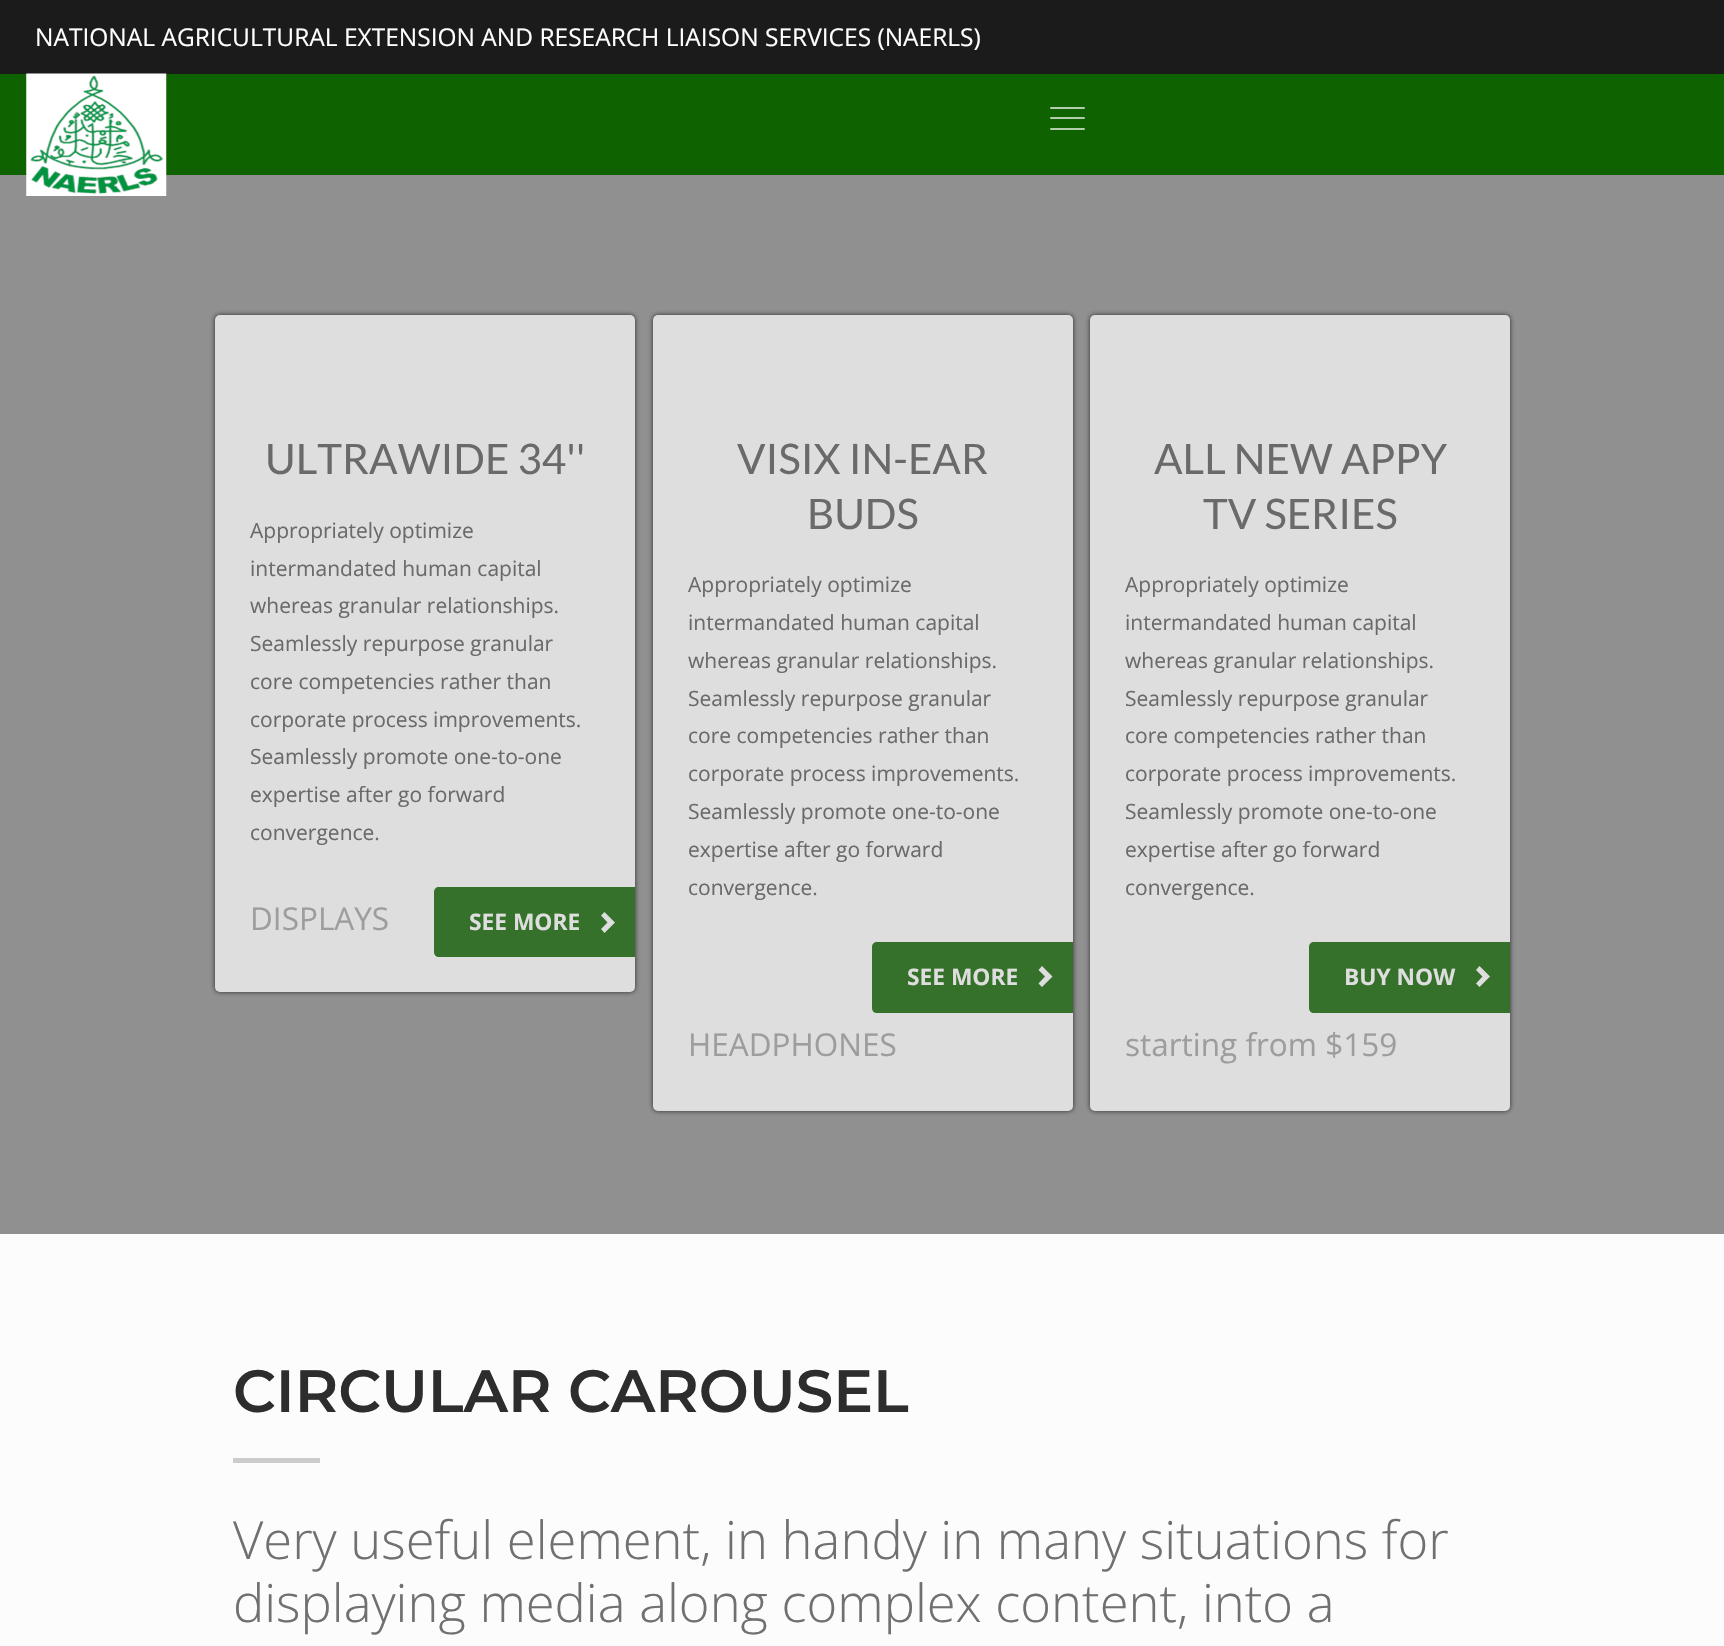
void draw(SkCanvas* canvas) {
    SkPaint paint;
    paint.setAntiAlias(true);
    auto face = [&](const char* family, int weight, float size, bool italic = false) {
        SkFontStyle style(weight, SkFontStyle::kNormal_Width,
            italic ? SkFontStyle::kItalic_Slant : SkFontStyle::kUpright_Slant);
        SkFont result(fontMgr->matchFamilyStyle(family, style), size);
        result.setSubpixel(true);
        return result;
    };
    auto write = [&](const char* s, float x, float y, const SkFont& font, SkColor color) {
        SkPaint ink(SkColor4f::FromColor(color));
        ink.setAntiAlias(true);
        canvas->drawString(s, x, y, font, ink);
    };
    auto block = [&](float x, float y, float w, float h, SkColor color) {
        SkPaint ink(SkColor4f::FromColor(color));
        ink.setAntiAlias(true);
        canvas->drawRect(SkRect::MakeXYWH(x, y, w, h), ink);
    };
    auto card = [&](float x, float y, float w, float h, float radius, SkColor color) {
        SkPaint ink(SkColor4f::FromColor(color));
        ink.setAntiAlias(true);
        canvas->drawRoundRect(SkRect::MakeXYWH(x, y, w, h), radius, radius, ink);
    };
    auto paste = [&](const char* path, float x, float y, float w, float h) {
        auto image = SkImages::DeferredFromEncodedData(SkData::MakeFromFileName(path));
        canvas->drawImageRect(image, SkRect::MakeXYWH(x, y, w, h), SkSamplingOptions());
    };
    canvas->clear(SkColorSetRGB(252, 252, 252));
    block(0, 74, 1724, 101, SkColorSetRGB(14, 99, 0));
    block(0, 0, 1724, 74, SkColorSetRGB(27, 27, 27));
    auto kFont1 = face("Open Sans", 400, 24.5f);
    write("NATIONAL AGRICULTURAL EXTENSION AND RESEARCH LIAISON SERVICES (NAERLS)", 35, 46, kFont1, SK_ColorWHITE);
    block(0, 175, 1724, 1059, SkColorSetRGB(144, 144, 144));
    paste("pic1.png", 26, 73, 141, 123);
    card(1050, 107, 35, 2, 1, SkColorSetRGB(178, 205, 173));
    card(1050, 117, 35, 2, 1, SkColorSetRGB(178, 205, 173));
    card(1050, 128, 35, 2, 1, SkColorSetRGB(178, 205, 173));
    paint.setColor(SkColorSetRGB(43, 43, 43));
    paint.setMaskFilter(SkMaskFilter::MakeBlur(kNormal_SkBlurStyle, 2.5f));
    canvas->drawRoundRect(SkRect::MakeXYWH(215, 315, 420, 677), 5, 5, paint);
    paint.setMaskFilter(nullptr);
    card(215, 315, 420, 677, 5, SkColorSetRGB(222, 222, 222));
    auto kFont2 = face("Lato", 400, 42);
    write("ULTRAWIDE 34''", 265, 474, kFont2, SkColorSetRGB(106, 106, 106));
    auto kFont3 = face("Open Sans", 400, 21);
    write("Appropriately optimize", 250, 538, kFont3, SkColorSetRGB(106, 106, 106));
    write("intermandated human capital", 250, 576, kFont3, SkColorSetRGB(106, 106, 106));
    write("whereas granular relationships.", 250, 613, kFont3, SkColorSetRGB(106, 106, 106));
    write("Seamlessly repurpose granular", 250, 651, kFont3, SkColorSetRGB(106, 106, 106));
    write("core competencies rather than", 250, 689, kFont3, SkColorSetRGB(106, 106, 106));
    write("corporate process improvements.", 250, 727, kFont3, SkColorSetRGB(106, 106, 106));
    write("Seamlessly promote one-to-one", 250, 764, kFont3, SkColorSetRGB(106, 106, 106));
    write("expertise after go forward", 250, 802, kFont3, SkColorSetRGB(106, 106, 106));
    write("convergence.", 250, 840, kFont3, SkColorSetRGB(106, 106, 106));
    auto kFont4 = face("Open Sans", 400, 31.5f);
    write("DISPLAYS", 250, 930, kFont4, SkColorSetRGB(157, 157, 157));
    paint.setColor(SkColorSetRGB(53, 113, 43));
    canvas->drawPath(SkPathBuilder().moveTo(439, 887).lineTo(635, 887).lineTo(635, 957).lineTo(439, 957).cubicTo(436, 957, 434, 955, 434, 952).lineTo(434, 892).cubicTo(434, 889, 436, 887, 439, 887).close().detach(), paint);
    auto kFont5 = face("Open Sans", 700, 22.75f);
    write("SEE MORE", 469, 930, kFont5, SkColorSetRGB(222, 222, 222));
    paint.setColor(SkColorSetRGB(222, 222, 222));
    canvas->drawPath(SkPathBuilder().moveTo(615, 922.5f).lineTo(604.5f, 933).lineTo(601, 929).lineTo(607.5f, 922.5f).lineTo(601, 915.5f).lineTo(604.5f, 912).close().detach(), paint);
    paint.setColor(SkColorSetRGB(43, 43, 43));
    paint.setMaskFilter(SkMaskFilter::MakeBlur(kNormal_SkBlurStyle, 2.5f));
    canvas->drawRoundRect(SkRect::MakeXYWH(653, 315, 420, 796), 5, 5, paint);
    paint.setMaskFilter(nullptr);
    card(653, 315, 420, 796, 5, SkColorSetRGB(222, 222, 222));
    write("VISIX IN-EAR", 737, 474, kFont2, SkColorSetRGB(106, 106, 106));
    write("BUDS", 807, 529, kFont2, SkColorSetRGB(106, 106, 106));
    write("Appropriately optimize", 688, 592, kFont3, SkColorSetRGB(106, 106, 106));
    write("intermandated human capital", 688, 630, kFont3, SkColorSetRGB(106, 106, 106));
    write("whereas granular relationships.", 688, 668, kFont3, SkColorSetRGB(106, 106, 106));
    write("Seamlessly repurpose granular", 688, 706, kFont3, SkColorSetRGB(106, 106, 106));
    write("core competencies rather than", 688, 743, kFont3, SkColorSetRGB(106, 106, 106));
    write("corporate process improvements.", 688, 781, kFont3, SkColorSetRGB(106, 106, 106));
    write("Seamlessly promote one-to-one", 688, 819, kFont3, SkColorSetRGB(106, 106, 106));
    write("expertise after go forward", 688, 857, kFont3, SkColorSetRGB(106, 106, 106));
    write("convergence.", 688, 895, kFont3, SkColorSetRGB(106, 106, 106));
    paint.setColor(SkColorSetRGB(53, 113, 43));
    canvas->drawPath(SkPathBuilder().moveTo(877, 942).lineTo(1073, 942).lineTo(1073, 1013).lineTo(877, 1013).cubicTo(874, 1013, 872, 1011, 872, 1008).lineTo(872, 947).cubicTo(872, 944, 874, 942, 877, 942).close().detach(), paint);
    write("SEE MORE", 907, 985, kFont5, SkColorSetRGB(222, 222, 222));
    paint.setColor(SkColorSetRGB(222, 222, 222));
    canvas->drawPath(SkPathBuilder().moveTo(1052.5f, 976.5f).lineTo(1042, 987).lineTo(1038.5f, 983.5f).lineTo(1045, 976.5f).lineTo(1038.5f, 970).lineTo(1042, 966).close().detach(), paint);
    write("HEADPHONES", 688, 1056, kFont4, SkColorSetRGB(157, 157, 157));
    paint.setColor(SkColorSetRGB(43, 43, 43));
    paint.setMaskFilter(SkMaskFilter::MakeBlur(kNormal_SkBlurStyle, 2.5f));
    canvas->drawRoundRect(SkRect::MakeXYWH(1090, 315, 420, 796), 5, 5, paint);
    paint.setMaskFilter(nullptr);
    card(1090, 315, 420, 796, 5, SkColorSetRGB(222, 222, 222));
    write("ALL NEW APPY", 1154, 474, kFont2, SkColorSetRGB(106, 106, 106));
    write("TV SERIES", 1203, 529, kFont2, SkColorSetRGB(106, 106, 106));
    write("Appropriately optimize", 1125, 592, kFont3, SkColorSetRGB(106, 106, 106));
    write("intermandated human capital", 1125, 630, kFont3, SkColorSetRGB(106, 106, 106));
    write("whereas granular relationships.", 1125, 668, kFont3, SkColorSetRGB(106, 106, 106));
    write("Seamlessly repurpose granular", 1125, 706, kFont3, SkColorSetRGB(106, 106, 106));
    write("core competencies rather than", 1125, 743, kFont3, SkColorSetRGB(106, 106, 106));
    write("corporate process improvements.", 1125, 781, kFont3, SkColorSetRGB(106, 106, 106));
    write("Seamlessly promote one-to-one", 1125, 819, kFont3, SkColorSetRGB(106, 106, 106));
    write("expertise after go forward", 1125, 857, kFont3, SkColorSetRGB(106, 106, 106));
    write("convergence.", 1125, 895, kFont3, SkColorSetRGB(106, 106, 106));
    paint.setColor(SkColorSetRGB(53, 113, 43));
    canvas->drawPath(SkPathBuilder().moveTo(1314, 942).lineTo(1510, 942).lineTo(1510, 1013).lineTo(1314, 1013).cubicTo(1311, 1013, 1309, 1011, 1309, 1008).lineTo(1309, 947).cubicTo(1309, 944, 1311, 942, 1314, 942).close().detach(), paint);
    write("BUY NOW", 1344, 985, kFont5, SkColorSetRGB(222, 222, 222));
    paint.setColor(SkColorSetRGB(222, 222, 222));
    canvas->drawPath(SkPathBuilder().moveTo(1490, 976.5f).lineTo(1479.5f, 987).lineTo(1476, 983.5f).lineTo(1482.5f, 976.5f).lineTo(1476, 970).lineTo(1479.5f, 966).close().detach(), paint);
    write("starting from $159", 1125, 1056, kFont4, SkColorSetRGB(157, 157, 157));
    auto kFont6 = face("Montserrat", 600, 59.5f);
    write("CIRCULAR CAROUSEL", 233, 1412, kFont6, SkColorSetRGB(45, 45, 45));
    block(233, 1458, 87, 5, SkColorSetRGB(204, 204, 204));
    auto kFont7 = face("Open Sans", 300, 52.5f);
    write("Very useful element, in handy in many situations for", 233, 1559, kFont7, SkColorSetRGB(112, 112, 112));
    write("displaying media along complex content, into a", 233, 1622, kFont7, SkColorSetRGB(112, 112, 112));
}
